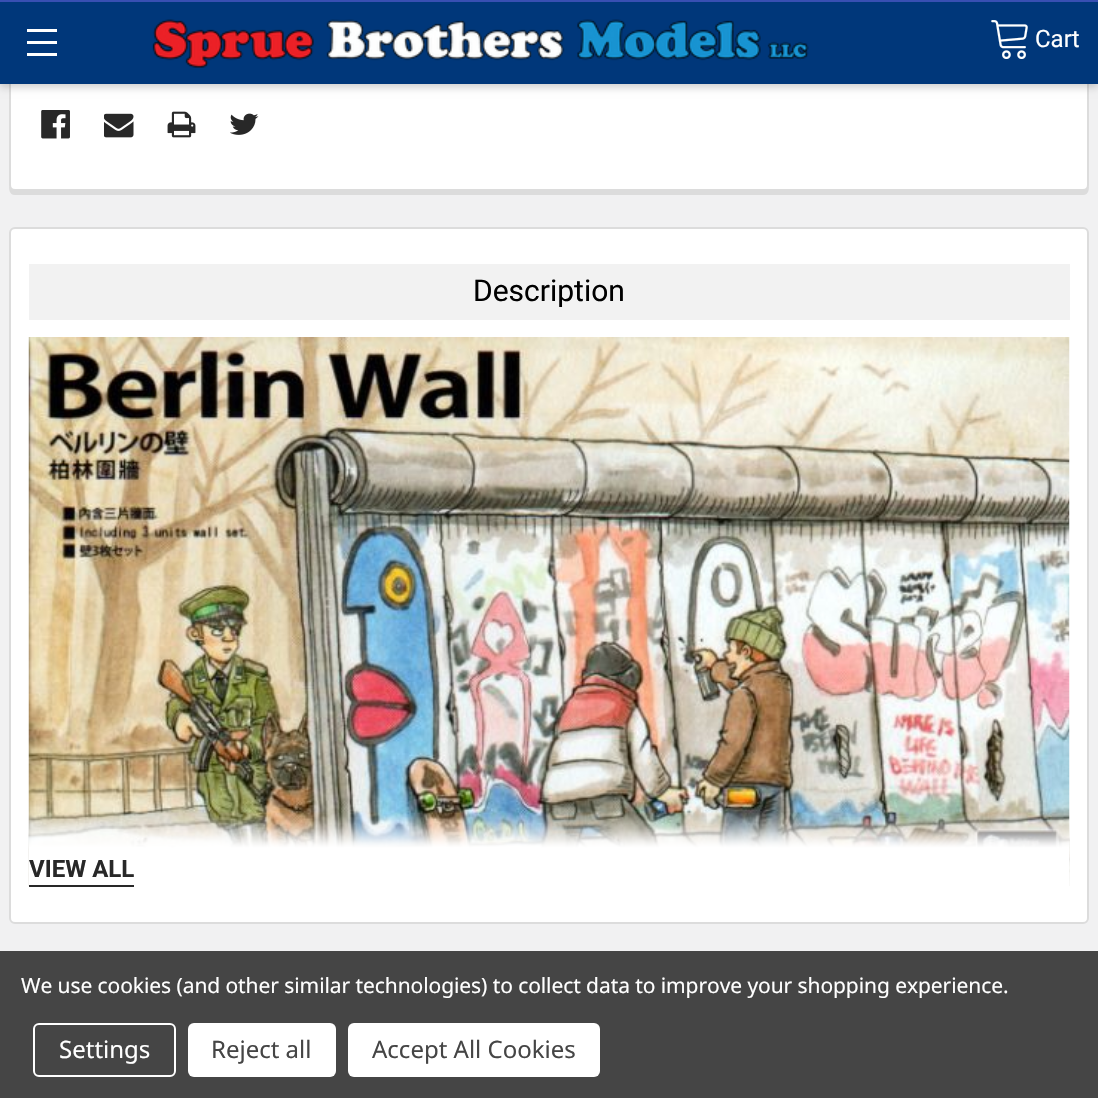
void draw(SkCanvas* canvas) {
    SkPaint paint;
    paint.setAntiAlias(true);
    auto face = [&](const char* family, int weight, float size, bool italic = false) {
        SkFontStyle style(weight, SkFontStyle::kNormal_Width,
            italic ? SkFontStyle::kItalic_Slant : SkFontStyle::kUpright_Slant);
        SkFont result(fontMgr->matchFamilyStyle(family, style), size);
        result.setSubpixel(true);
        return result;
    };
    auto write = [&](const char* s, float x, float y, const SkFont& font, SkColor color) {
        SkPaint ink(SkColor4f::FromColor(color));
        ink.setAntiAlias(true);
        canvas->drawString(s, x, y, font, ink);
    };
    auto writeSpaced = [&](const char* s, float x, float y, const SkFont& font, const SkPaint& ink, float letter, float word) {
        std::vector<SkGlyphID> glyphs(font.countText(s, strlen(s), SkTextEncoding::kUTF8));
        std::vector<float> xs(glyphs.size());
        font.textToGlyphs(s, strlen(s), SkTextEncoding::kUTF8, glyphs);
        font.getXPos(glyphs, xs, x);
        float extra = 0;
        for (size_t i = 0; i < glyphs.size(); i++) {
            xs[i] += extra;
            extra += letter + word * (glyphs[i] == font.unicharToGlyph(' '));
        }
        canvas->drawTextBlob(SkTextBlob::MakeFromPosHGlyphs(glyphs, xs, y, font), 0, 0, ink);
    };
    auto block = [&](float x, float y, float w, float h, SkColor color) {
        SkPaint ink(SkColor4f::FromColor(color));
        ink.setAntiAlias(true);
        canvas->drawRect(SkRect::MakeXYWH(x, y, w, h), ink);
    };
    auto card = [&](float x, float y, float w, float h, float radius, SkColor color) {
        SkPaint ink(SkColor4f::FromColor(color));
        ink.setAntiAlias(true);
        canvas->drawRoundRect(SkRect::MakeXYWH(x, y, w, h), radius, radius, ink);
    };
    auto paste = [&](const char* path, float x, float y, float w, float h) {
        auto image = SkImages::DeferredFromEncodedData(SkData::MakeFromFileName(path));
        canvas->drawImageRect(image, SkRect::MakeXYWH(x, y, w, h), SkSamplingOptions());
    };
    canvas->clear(SkColorSetRGB(241, 241, 242));
    paint.setColor(SkColorSetRGB(220, 220, 220));
    canvas->drawPath(SkPathBuilder().moveTo(9, 184).cubicTo(9, 189, 9, 195, 15, 195).lineTo(1083, 195).cubicTo(1089, 195, 1089, 189, 1089, 184).cubicTo(1089, 188, 1086, 190, 1083, 190).lineTo(15, 190).cubicTo(12, 190, 9, 188, 9, 184).close().detach(), paint);
    paint.setColor(SK_ColorWHITE);
    canvas->drawRoundRect(SkRect::MakeXYWH(10, -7, 1078, 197), 5, 5, paint);
    paint.setStyle(SkPaint::kStroke_Style);
    paint.setStrokeWidth(2);
    paint.setColor(SkColorSetRGB(220, 220, 220));
    canvas->drawRoundRect(SkRect::MakeXYWH(10, -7, 1078, 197), 5, 5, paint);
    paint.setStyle(SkPaint::kFill_Style);
    paint.setColor(SkColorSetARGB(51, 0, 0, 0));
    paint.setMaskFilter(SkMaskFilter::MakeBlur(kNormal_SkBlurStyle, 4));
    canvas->drawRect(SkRect::MakeXYWH(0, 3, 1098, 84), paint);
    paint.setMaskFilter(nullptr);
    block(0, 2, 1098, 82, SkColorSetRGB(0, 55, 122));
    block(0, 0, 1098, 2, SkColorSetRGB(56, 79, 178));
    block(27, 41, 30, 3, SK_ColorWHITE);
    block(27, 29, 30, 3, SK_ColorWHITE);
    block(27, 53, 30, 3, SK_ColorWHITE);
    paste("pic1.png", 152, 19, 657, 49);
    paste("pic2.png", 991, 20, 37, 39);
    auto kFont1 = face("Roboto", 400, 24);
    write("Cart", 1035, 47, kFont1, SK_ColorWHITE);
    paste("pic3.png", 41, 110, 29, 29);
    paste("pic4.png", 104, 113, 30, 25);
    paste("pic5.png", 167, 111, 29, 27);
    paste("pic6.png", 230, 113, 29, 22);
    paint.setColor(SK_ColorWHITE);
    canvas->drawRoundRect(SkRect::MakeXYWH(10, 228, 1078, 695), 5, 5, paint);
    paint.setStyle(SkPaint::kStroke_Style);
    paint.setColor(SkColorSetRGB(220, 220, 220));
    canvas->drawRoundRect(SkRect::MakeXYWH(10, 228, 1078, 695), 5, 5, paint);
    block(29, 264, 1041, 56, SkColorSetRGB(242, 242, 242));
    auto kFont2 = face("Roboto", 400, 30);
    write("Description", 473, 301, kFont2, SK_ColorBLACK);
    paste("pic7.png", 28, 337, 1042, 549);
    paste("pic8.png", 28, 813, 1042, 73);
    block(29, 885, 105, 2, SkColorSetRGB(40, 40, 40));
    auto kFont3 = face("Roboto", 700, 24);
    write("VIEW ALL", 29, 877, kFont3, SkColorSetRGB(40, 40, 40));
    block(0, 951, 1098, 147, SkColorSetRGB(69, 69, 69));
    auto kFont4 = face("Noto Sans", 400, 21);
    paint.setStyle(SkPaint::kFill_Style);
    paint.setColor(SK_ColorWHITE);
    writeSpaced("We use cookies (and other similar technologies) to collect data to improve your shopping experience.", 21, 993, kFont4, paint, -0.08f, 0);
    paint.setStyle(SkPaint::kStroke_Style);
    canvas->drawRoundRect(SkRect::MakeXYWH(34, 1024, 141, 52), 5, 5, paint);
    auto kFont5 = face("Noto Sans", 400, 24);
    write("Settings", 59, 1058, kFont5, SK_ColorWHITE);
    card(188, 1023, 148, 54, 6, SK_ColorWHITE);
    write("Reject all", 211, 1058, kFont5, SkColorSetRGB(69, 69, 69));
    card(348, 1023, 252, 54, 6, SK_ColorWHITE);
    write("Accept All Cookies", 372, 1058, kFont5, SkColorSetRGB(69, 69, 69));
}
